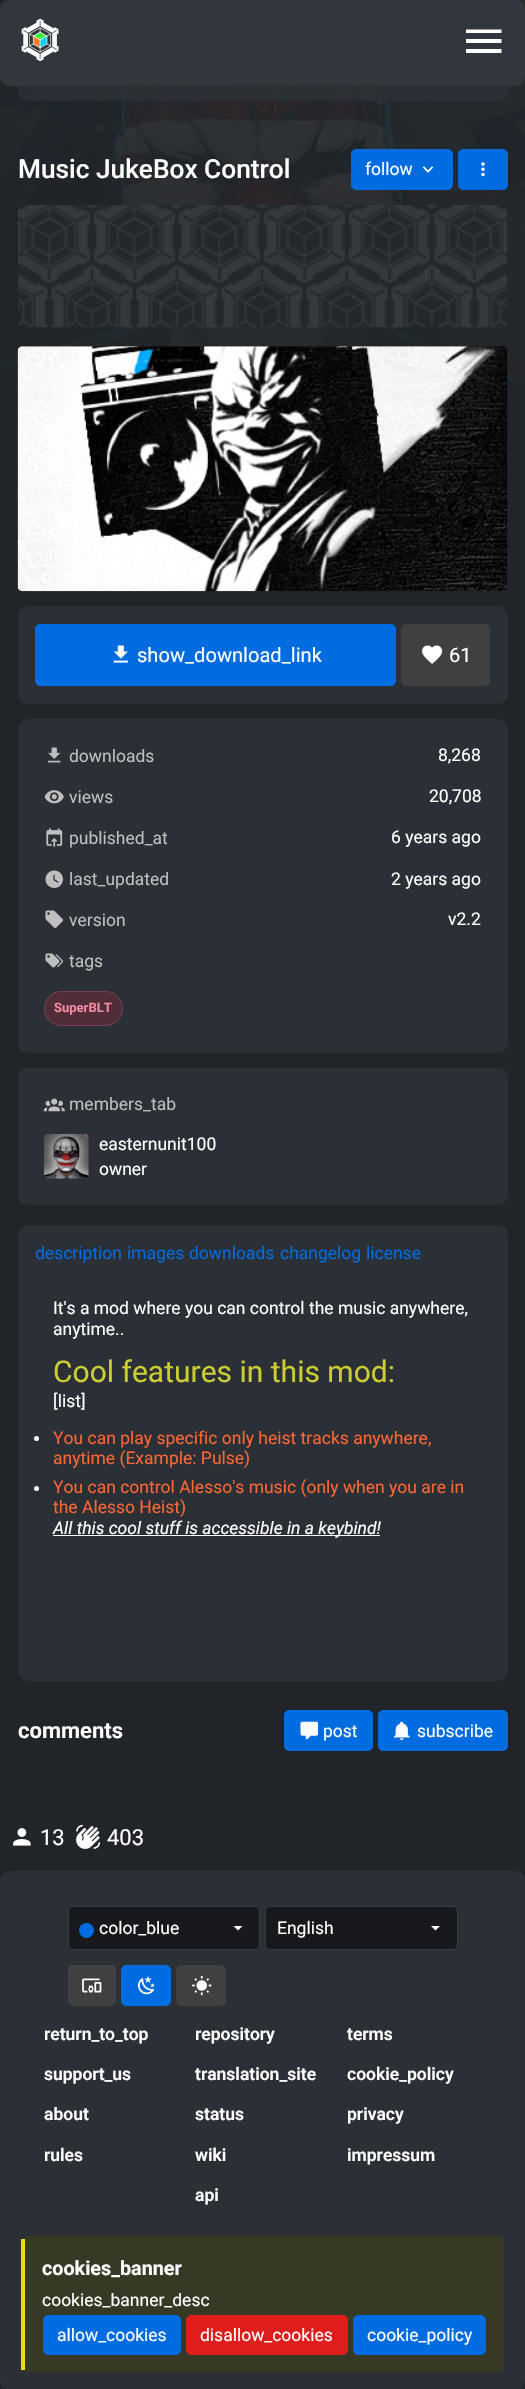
void draw(SkCanvas* canvas) {
    SkPaint paint;
    paint.setAntiAlias(true);
    auto face = [&](const char* family, int weight, float size, bool italic = false) {
        SkFontStyle style(weight, SkFontStyle::kNormal_Width,
            italic ? SkFontStyle::kItalic_Slant : SkFontStyle::kUpright_Slant);
        SkFont result(fontMgr->matchFamilyStyle(family, style), size);
        result.setSubpixel(true);
        return result;
    };
    auto write = [&](const char* s, float x, float y, const SkFont& font, SkColor color) {
        SkPaint ink(SkColor4f::FromColor(color));
        ink.setAntiAlias(true);
        canvas->drawString(s, x, y, font, ink);
    };
    auto block = [&](float x, float y, float w, float h, SkColor color) {
        SkPaint ink(SkColor4f::FromColor(color));
        ink.setAntiAlias(true);
        canvas->drawRect(SkRect::MakeXYWH(x, y, w, h), ink);
    };
    auto card = [&](float x, float y, float w, float h, float radius, SkColor color) {
        SkPaint ink(SkColor4f::FromColor(color));
        ink.setAntiAlias(true);
        canvas->drawRoundRect(SkRect::MakeXYWH(x, y, w, h), radius, radius, ink);
    };
    auto paste = [&](const char* path, float x, float y, float w, float h) {
        auto image = SkImages::DeferredFromEncodedData(SkData::MakeFromFileName(path));
        canvas->drawImageRect(image, SkRect::MakeXYWH(x, y, w, h), SkSamplingOptions());
    };
    canvas->clear(SkColorSetRGB(33, 37, 41));
    paste("pic2.png", 0, 0, 525, 383);
    card(18, 36, 490, 65, 10, SkColorSetARGB(207, 43, 48, 54));
    card(0, 0, 525, 86, 10, SkColorSetRGB(50, 55, 62));
    paste("pic1.png", 21, 18, 38, 44);
    paint.setColor(SK_ColorWHITE);
    canvas->drawPath(SkPathBuilder().moveTo(466, 29.5f).lineTo(501.5f, 29.5f).lineTo(501.5f, 33).lineTo(466, 33).close().moveTo(466, 39).lineTo(501.5f, 39).lineTo(501.5f, 43).lineTo(466, 43).close().moveTo(466, 49).lineTo(501.5f, 49).lineTo(501.5f, 53).lineTo(466, 53).close().detach(), paint);
    auto kFont1 = face("Roboto", 500, 26.25f);
    write("Music JukeBox Control", 18, 178, kFont1, SK_ColorWHITE);
    paint.setColor(SkColorSetRGB(0, 108, 224));
    canvas->drawRoundRect(SkRect::MakeXYWH(351.5f, 149.5f, 101, 40), 4.5f, 4.5f, paint);
    paint.setStyle(SkPaint::kStroke_Style);
    paint.setStrokeWidth(1);
    canvas->drawRoundRect(SkRect::MakeXYWH(351.5f, 149.5f, 101, 40), 4.5f, 4.5f, paint);
    auto kFont2 = face("Roboto", 400, 17.5f);
    write("follow", 365, 175, kFont2, SK_ColorWHITE);
    paste("pic3.png", 422, 166, 12, 7);
    paint.setStyle(SkPaint::kFill_Style);
    canvas->drawRoundRect(SkRect::MakeXYWH(458.5f, 149.5f, 49, 40), 4.5f, 4.5f, paint);
    paint.setStyle(SkPaint::kStroke_Style);
    canvas->drawRoundRect(SkRect::MakeXYWH(458.5f, 149.5f, 49, 40), 4.5f, 4.5f, paint);
    paste("pic4.png", 481, 162, 4, 15);
    paste("pic5.png", 18, 205, 489, 123);
    paste("pic6.png", 17, 346, 491, 246);
    card(18, 606, 490, 98, 10, SkColorSetRGB(43, 48, 54));
    paint.setStyle(SkPaint::kFill_Style);
    canvas->drawRoundRect(SkRect::MakeXYWH(35.5f, 624.5f, 360, 61), 4.5f, 4.5f, paint);
    paint.setStyle(SkPaint::kStroke_Style);
    canvas->drawRoundRect(SkRect::MakeXYWH(35.5f, 624.5f, 360, 61), 4.5f, 4.5f, paint);
    paste("pic7.png", 113, 645, 15, 18);
    auto kFont3 = face("Roboto", 400, 20.1f);
    write("show_download_link", 137, 662, kFont3, SK_ColorWHITE);
    paint.setStyle(SkPaint::kFill_Style);
    paint.setColor(SkColorSetRGB(64, 64, 64));
    canvas->drawRoundRect(SkRect::MakeXYWH(401.5f, 624.5f, 88, 61), 4.5f, 4.5f, paint);
    paint.setStyle(SkPaint::kStroke_Style);
    canvas->drawRoundRect(SkRect::MakeXYWH(401.5f, 624.5f, 88, 61), 4.5f, 4.5f, paint);
    paste("pic8.png", 422, 645, 21, 19);
    write("61", 449, 662, kFont3, SK_ColorWHITE);
    card(18, 719, 490, 334, 10, SkColorSetRGB(43, 48, 54));
    paste("pic9.png", 48, 747, 13, 16);
    write("downloads", 69, 762, kFont2, SkColorSetRGB(191, 191, 191));
    write("8,268", 438, 761, kFont2, SK_ColorWHITE);
    paste("pic10.png", 44, 790, 20, 14);
    write("views", 69, 803, kFont2, SkColorSetRGB(191, 191, 191));
    write("20,708", 429, 802, kFont2, SK_ColorWHITE);
    paste("pic11.png", 46, 828, 17, 19);
    write("published_at", 69, 844, kFont2, SkColorSetRGB(191, 191, 191));
    write("6 years ago", 391, 843, kFont2, SK_ColorWHITE);
    paste("pic12.png", 45, 870, 18, 18);
    write("last_updated", 69, 885, kFont2, SkColorSetRGB(191, 191, 191));
    write("2 years ago", 391, 885, kFont2, SK_ColorWHITE);
    paste("pic13.png", 45, 910, 18, 18);
    write("version", 69, 926, kFont2, SkColorSetRGB(191, 191, 191));
    write("v2.2", 448, 925, kFont2, SK_ColorWHITE);
    paste("pic14.png", 45, 953, 18, 15);
    write("tags", 69, 967, kFont2, SkColorSetRGB(191, 191, 191));
    card(44, 991, 79, 35, 17.5f, SkColorSetRGB(81, 45, 58));
    paint.setColor(SkColorSetARGB(51, 244, 139, 160));
    canvas->drawRoundRect(SkRect::MakeXYWH(44.5f, 991.5f, 78, 34), 17, 17, paint);
    auto kFont4 = face("Roboto", 700, 13);
    write("SuperBLT", 54, 1012, kFont4, SkColorSetRGB(244, 139, 160));
    card(18, 1068, 490, 137, 10, SkColorSetRGB(43, 48, 54));
    paste("pic15.png", 43, 1098, 22, 14);
    write("members_tab", 69, 1110, kFont2, SkColorSetRGB(191, 191, 191));
    paste("pic16.png", 43, 1133, 46, 46);
    write("easternunit100", 99, 1150, kFont2, SK_ColorWHITE);
    write("owner", 99, 1175, kFont2, SK_ColorWHITE);
    card(18, 1225, 490, 456, 10, SkColorSetRGB(43, 48, 54));
    write("description", 35, 1259, kFont2, SkColorSetRGB(0, 108, 224));
    write("images", 127, 1259, kFont2, SkColorSetRGB(0, 108, 224));
    write("downloads", 189, 1259, kFont2, SkColorSetRGB(0, 108, 224));
    write("changelog", 280, 1259, kFont2, SkColorSetRGB(0, 108, 224));
    write("license", 366, 1259, kFont2, SkColorSetRGB(0, 108, 224));
    write("It's a mod where you can control the music anywhere,", 53, 1314, kFont2, SK_ColorWHITE);
    write("anytime..", 53, 1335, kFont2, SK_ColorWHITE);
    auto kFont5 = face("Roboto", 400, 30);
    write("Cool features in this mod:", 53, 1382, kFont5, SkColorSetRGB(204, 204, 51));
    write("[list]", 53, 1407, kFont2, SK_ColorWHITE);
    paint.setStyle(SkPaint::kFill_Style);
    paint.setColor(SK_ColorWHITE);
    canvas->drawCircle(36.5f, 1438.5f, 2.5f, paint);
    write("You can play specific only heist tracks anywhere,", 53, 1444, kFont2, SkColorSetRGB(255, 102, 51));
    write("anytime (Example: Pulse)", 53, 1464, kFont2, SkColorSetRGB(255, 102, 51));
    canvas->drawCircle(36.5f, 1488.5f, 2.5f, paint);
    write("You can control Alesso's music (only when you are in", 53, 1493, kFont2, SkColorSetRGB(255, 102, 51));
    write("the Alesso Heist)", 53, 1513, kFont2, SkColorSetRGB(255, 102, 51));
    block(53, 1535, 327, 1, SK_ColorWHITE);
    auto kFont6 = face("Roboto", 400, 17.5f, true);
    write("All this cool stuff is accessible in a keybind!", 53, 1534, kFont6, SK_ColorWHITE);
    auto kFont7 = face("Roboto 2", 600, 22);
    write("comments", 18, 1738, kFont7, SK_ColorWHITE);
    paint.setColor(SkColorSetRGB(0, 108, 224));
    canvas->drawRoundRect(SkRect::MakeXYWH(284.5f, 1710.5f, 88, 40), 4.5f, 4.5f, paint);
    paint.setStyle(SkPaint::kStroke_Style);
    canvas->drawRoundRect(SkRect::MakeXYWH(284.5f, 1710.5f, 88, 40), 4.5f, 4.5f, paint);
    paste("pic17.png", 300, 1721, 18, 19);
    write("post", 323, 1737, kFont2, SK_ColorWHITE);
    paint.setStyle(SkPaint::kFill_Style);
    canvas->drawRoundRect(SkRect::MakeXYWH(378.5f, 1710.5f, 129, 40), 4.5f, 4.5f, paint);
    paint.setStyle(SkPaint::kStroke_Style);
    canvas->drawRoundRect(SkRect::MakeXYWH(378.5f, 1710.5f, 129, 40), 4.5f, 4.5f, paint);
    paste("pic18.png", 393, 1721, 17, 20);
    write("subscribe", 417, 1737, kFont2, SK_ColorWHITE);
    paste("pic19.png", 13, 1828, 18, 18);
    auto kFont8 = face("Roboto", 400, 22);
    write("13", 40, 1845, kFont8, SK_ColorWHITE);
    paste("pic20.png", 76, 1824, 25, 25);
    write("403", 107, 1845, kFont8, SK_ColorWHITE);
    card(0, 1871, 525, 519, 10, SkColorSetRGB(43, 48, 54));
    paint.setStyle(SkPaint::kFill_Style);
    paint.setColor(SkColorSetRGB(23, 25, 28));
    canvas->drawRoundRect(SkRect::MakeXYWH(68.5f, 1906.5f, 191, 43), 4.5f, 4.5f, paint);
    paint.setStyle(SkPaint::kStroke_Style);
    paint.setColor(SkColorSetRGB(54, 61, 68));
    canvas->drawRoundRect(SkRect::MakeXYWH(68.5f, 1906.5f, 191, 43), 4.5f, 4.5f, paint);
    paint.setStyle(SkPaint::kFill_Style);
    paint.setColor(SkColorSetRGB(0, 108, 224));
    canvas->drawCircle(86.5f, 1930.5f, 7.5f, paint);
    write("color_blue", 99, 1934, kFont2, SK_ColorWHITE);
    paint.setColor(SK_ColorWHITE);
    canvas->drawPath(SkPathBuilder().moveTo(233.5f, 1926).lineTo(238, 1930.5f).lineTo(242.5f, 1926).close().detach(), paint);
    paint.setColor(SkColorSetRGB(23, 25, 28));
    canvas->drawRoundRect(SkRect::MakeXYWH(265.5f, 1906.5f, 192, 43), 4.5f, 4.5f, paint);
    paint.setStyle(SkPaint::kStroke_Style);
    paint.setColor(SkColorSetRGB(54, 61, 68));
    canvas->drawRoundRect(SkRect::MakeXYWH(265.5f, 1906.5f, 192, 43), 4.5f, 4.5f, paint);
    write("English", 277, 1934, kFont2, SK_ColorWHITE);
    paint.setStyle(SkPaint::kFill_Style);
    paint.setColor(SK_ColorWHITE);
    canvas->drawPath(SkPathBuilder().moveTo(431, 1926).lineTo(435.5f, 1930.5f).lineTo(440, 1926).close().detach(), paint);
    paint.setColor(SkColorSetRGB(64, 64, 64));
    canvas->drawRoundRect(SkRect::MakeXYWH(68.5f, 1965.5f, 47, 40), 4.5f, 4.5f, paint);
    paint.setStyle(SkPaint::kStroke_Style);
    canvas->drawRoundRect(SkRect::MakeXYWH(68.5f, 1965.5f, 47, 40), 4.5f, 4.5f, paint);
    paste("pic21.png", 82, 1978, 20, 15);
    paint.setStyle(SkPaint::kFill_Style);
    paint.setColor(SkColorSetRGB(0, 108, 224));
    canvas->drawRoundRect(SkRect::MakeXYWH(121.5f, 1965.5f, 49, 40), 4.5f, 4.5f, paint);
    paint.setStyle(SkPaint::kStroke_Style);
    canvas->drawRoundRect(SkRect::MakeXYWH(121.5f, 1965.5f, 49, 40), 4.5f, 4.5f, paint);
    paste("pic22.png", 138, 1976, 17, 19);
    paint.setStyle(SkPaint::kFill_Style);
    paint.setColor(SkColorSetRGB(64, 64, 64));
    canvas->drawRoundRect(SkRect::MakeXYWH(176.5f, 1965.5f, 49, 40), 4.5f, 4.5f, paint);
    paint.setStyle(SkPaint::kStroke_Style);
    canvas->drawRoundRect(SkRect::MakeXYWH(176.5f, 1965.5f, 49, 40), 4.5f, 4.5f, paint);
    paste("pic23.png", 192, 1975, 20, 21);
    auto kFont9 = face("Roboto", 600, 17.5f);
    write("return_to_top", 44, 2040, kFont9, SK_ColorWHITE);
    write("support_us", 44, 2080, kFont9, SK_ColorWHITE);
    write("about", 44, 2120, kFont9, SK_ColorWHITE);
    write("rules", 44, 2161, kFont9, SK_ColorWHITE);
    write("repository", 195, 2040, kFont9, SK_ColorWHITE);
    write("translation_site", 195, 2080, kFont9, SK_ColorWHITE);
    write("status", 195, 2120, kFont9, SK_ColorWHITE);
    write("wiki", 195, 2161, kFont9, SK_ColorWHITE);
    write("api", 195, 2201, kFont9, SK_ColorWHITE);
    write("terms", 347, 2040, kFont9, SK_ColorWHITE);
    write("cookie_policy", 347, 2080, kFont9, SK_ColorWHITE);
    write("privacy", 347, 2120, kFont9, SK_ColorWHITE);
    write("impressum", 347, 2161, kFont9, SK_ColorWHITE);
    paint.setStyle(SkPaint::kFill_Style);
    paint.setColor(SkColorSetRGB(56, 57, 37));
    canvas->drawPath(SkPathBuilder().moveTo(26, 2236).lineTo(499, 2236).cubicTo(502, 2236, 504, 2238, 504, 2241).lineTo(504, 2368).cubicTo(504, 2370, 502, 2372, 499, 2372).lineTo(26, 2372).cubicTo(26, 2372, 25, 2370, 25, 2368).lineTo(25, 2241).cubicTo(25, 2238, 26, 2236, 26, 2236).close().detach(), paint);
    block(21, 2239, 4, 131, SkColorSetRGB(236, 221, 15));
    auto kFont10 = face("Roboto", 700, 19.75f);
    write("cookies_banner", 42, 2275, kFont10, SK_ColorWHITE);
    write("cookies_banner_desc", 42, 2306, kFont2, SK_ColorWHITE);
    paint.setColor(SkColorSetRGB(0, 108, 224));
    canvas->drawRoundRect(SkRect::MakeXYWH(43.5f, 2315.5f, 137, 39), 4.5f, 4.5f, paint);
    paint.setStyle(SkPaint::kStroke_Style);
    canvas->drawRoundRect(SkRect::MakeXYWH(43.5f, 2315.5f, 137, 39), 4.5f, 4.5f, paint);
    write("allow_cookies", 57, 2341, kFont2, SK_ColorWHITE);
    paint.setStyle(SkPaint::kFill_Style);
    paint.setColor(SkColorSetRGB(223, 29, 29));
    canvas->drawRoundRect(SkRect::MakeXYWH(186.5f, 2315.5f, 161, 39), 4.5f, 4.5f, paint);
    paint.setStyle(SkPaint::kStroke_Style);
    canvas->drawRoundRect(SkRect::MakeXYWH(186.5f, 2315.5f, 161, 39), 4.5f, 4.5f, paint);
    write("disallow_cookies", 200, 2341, kFont2, SK_ColorWHITE);
    paint.setStyle(SkPaint::kFill_Style);
    paint.setColor(SkColorSetRGB(0, 108, 224));
    canvas->drawRoundRect(SkRect::MakeXYWH(353.5f, 2315.5f, 132, 39), 4.5f, 4.5f, paint);
    paint.setStyle(SkPaint::kStroke_Style);
    canvas->drawRoundRect(SkRect::MakeXYWH(353.5f, 2315.5f, 132, 39), 4.5f, 4.5f, paint);
    write("cookie_policy", 367, 2341, kFont2, SK_ColorWHITE);
}
